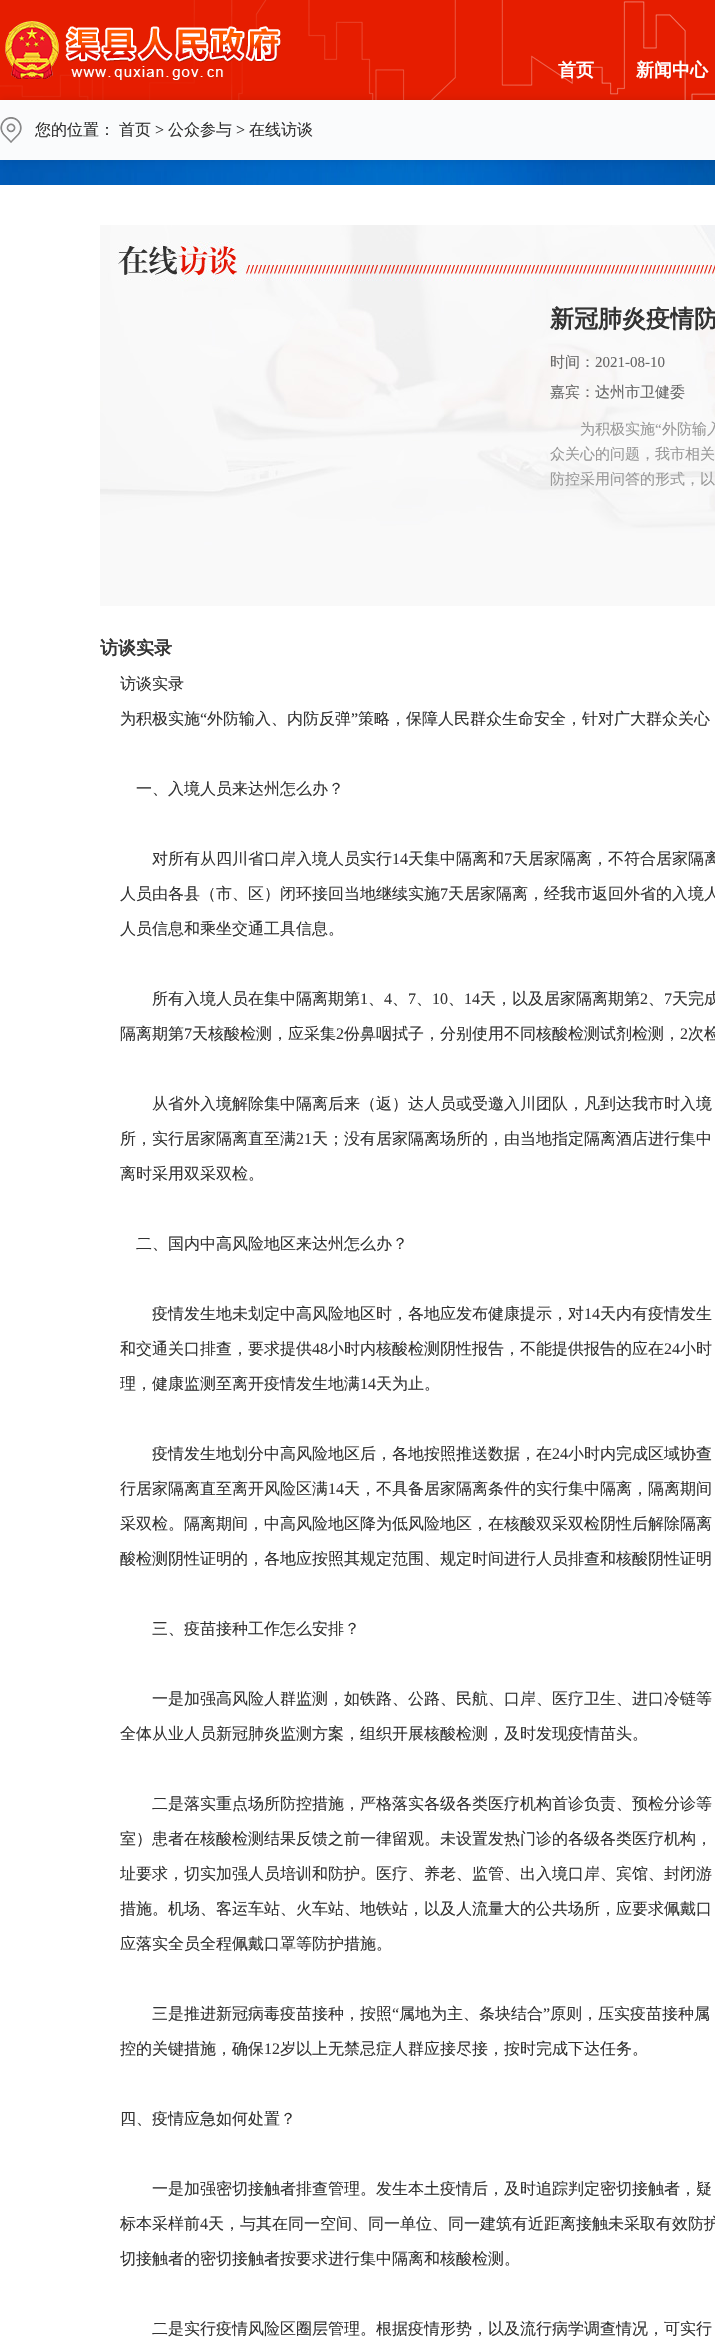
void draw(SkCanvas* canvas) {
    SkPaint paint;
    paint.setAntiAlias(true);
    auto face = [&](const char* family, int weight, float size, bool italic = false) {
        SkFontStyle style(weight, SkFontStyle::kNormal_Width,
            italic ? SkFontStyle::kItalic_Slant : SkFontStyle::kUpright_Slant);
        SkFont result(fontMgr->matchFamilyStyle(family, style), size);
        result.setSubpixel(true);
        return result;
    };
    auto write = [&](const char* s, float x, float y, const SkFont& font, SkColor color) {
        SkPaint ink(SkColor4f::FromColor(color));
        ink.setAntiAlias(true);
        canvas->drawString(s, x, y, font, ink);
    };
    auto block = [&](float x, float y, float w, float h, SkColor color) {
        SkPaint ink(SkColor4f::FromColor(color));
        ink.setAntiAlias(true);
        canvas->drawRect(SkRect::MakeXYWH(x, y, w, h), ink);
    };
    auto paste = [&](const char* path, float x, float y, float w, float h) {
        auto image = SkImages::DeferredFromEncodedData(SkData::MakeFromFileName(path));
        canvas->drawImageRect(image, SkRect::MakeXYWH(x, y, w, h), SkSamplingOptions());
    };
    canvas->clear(SK_ColorWHITE);
    block(0, 0, 715, 100, SkColorSetRGB(230, 29, 0));
    paste("pic1.png", 0, 0, 715, 100);
    paste("pic2.png", 5, 21, 276, 60);
    auto kFont1 = face("WenQuanYi Zen Hei", 700, 18);
    write("首页", 558, 76, kFont1, SK_ColorWHITE);
    write("新闻中心", 636, 76, kFont1, SK_ColorWHITE);
    paste("pic5.png", 0, 160, 715, 25);
    paint.setColor(SkColorSetARGB(26, 0, 0, 0));
    paint.setMaskFilter(SkMaskFilter::MakeBlur(kNormal_SkBlurStyle, 4));
    canvas->drawRect(SkRect::MakeXYWH(0, 100, 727, 60), paint);
    paint.setMaskFilter(nullptr);
    block(0, 100, 715, 60, SkColorSetRGB(250, 251, 252));
    paste("pic3.png", 0, 117, 22, 26);
    auto kFont2 = face("WenQuanYi Zen Hei", 500, 16);
    write("您的位置：", 35, 135, kFont2, SkColorSetRGB(51, 51, 51));
    write("首页", 119, 135, kFont2, SkColorSetRGB(51, 51, 51));
    auto kFont3 = face("Liberation Serif", 400, 16);
    write(">", 155, 135, kFont3, SkColorSetRGB(51, 51, 51));
    write("公众参与", 168, 135, kFont2, SkColorSetRGB(51, 51, 51));
    write(">", 236, 135, kFont3, SkColorSetRGB(51, 51, 51));
    write("在线访谈", 249, 135, kFont2, SkColorSetRGB(51, 51, 51));
    paste("pic4.png", 100, 225, 615, 381);
    auto kFont4 = face("WenQuanYi Zen Hei", 700, 24);
    write("新冠肺炎疫情防", 550, 327, kFont4, SkColorSetRGB(51, 51, 51));
    auto kFont5 = face("WenQuanYi Zen Hei", 500, 15);
    write("时间：", 550, 367, kFont5, SkColorSetRGB(102, 102, 102));
    auto kFont6 = face("Liberation Serif", 400, 15);
    write("2021-08-10", 595, 367, kFont6, SkColorSetRGB(102, 102, 102));
    write("嘉宾：达州市卫健委", 550, 397, kFont5, SkColorSetRGB(102, 102, 102));
    write("为积极实施", 580, 434, kFont5, SkColorSetRGB(153, 153, 153));
    write("“", 655, 434, kFont6, SkColorSetRGB(153, 153, 153));
    write("外防输入", 662, 434, kFont5, SkColorSetRGB(153, 153, 153));
    write("众关心的问题，我市相关", 550, 459, kFont5, SkColorSetRGB(153, 153, 153));
    write("防控采用问答的形式，以", 550, 484, kFont5, SkColorSetRGB(153, 153, 153));
    write("访谈实录", 100, 654, kFont1, SkColorSetRGB(51, 51, 51));
    write("访谈实录", 120, 689, kFont2, SkColorSetRGB(51, 51, 51));
    write("为积极实施", 120, 724, kFont2, SkColorSetRGB(51, 51, 51));
    write("“", 200, 724, kFont3, SkColorSetRGB(51, 51, 51));
    write("外防输入、内防反弹", 207, 724, kFont2, SkColorSetRGB(51, 51, 51));
    write("”", 351, 724, kFont3, SkColorSetRGB(51, 51, 51));
    write("策略，保障人民群众生命安全，针对广大群众关心", 358, 724, kFont2, SkColorSetRGB(51, 51, 51));
    write("一、入境人员来达州怎么办？", 136, 794, kFont2, SkColorSetRGB(51, 51, 51));
    write("对所有从四川省口岸入境人员实行", 152, 864, kFont2, SkColorSetRGB(51, 51, 51));
    write("14", 392, 864, kFont3, SkColorSetRGB(51, 51, 51));
    write("天集中隔离和", 408, 864, kFont2, SkColorSetRGB(51, 51, 51));
    write("7", 504, 864, kFont3, SkColorSetRGB(51, 51, 51));
    write("天居家隔离，不符合居家隔离", 512, 864, kFont2, SkColorSetRGB(51, 51, 51));
    write("人员由各县（市、区）闭环接回当地继续实施", 120, 899, kFont2, SkColorSetRGB(51, 51, 51));
    write("7", 440, 899, kFont3, SkColorSetRGB(51, 51, 51));
    write("天居家隔离，经我市返回外省的入境人", 448, 899, kFont2, SkColorSetRGB(51, 51, 51));
    write("人员信息和乘坐交通工具信息。", 120, 934, kFont2, SkColorSetRGB(51, 51, 51));
    write("所有入境人员在集中隔离期第", 152, 1004, kFont2, SkColorSetRGB(51, 51, 51));
    write("1", 360, 1004, kFont3, SkColorSetRGB(51, 51, 51));
    write("、", 368, 1004, kFont2, SkColorSetRGB(51, 51, 51));
    write("4", 384, 1004, kFont3, SkColorSetRGB(51, 51, 51));
    write("、", 392, 1004, kFont2, SkColorSetRGB(51, 51, 51));
    write("7", 408, 1004, kFont3, SkColorSetRGB(51, 51, 51));
    write("、", 416, 1004, kFont2, SkColorSetRGB(51, 51, 51));
    write("10", 432, 1004, kFont3, SkColorSetRGB(51, 51, 51));
    write("、", 448, 1004, kFont2, SkColorSetRGB(51, 51, 51));
    write("14", 464, 1004, kFont3, SkColorSetRGB(51, 51, 51));
    write("天，以及居家隔离期第", 480, 1004, kFont2, SkColorSetRGB(51, 51, 51));
    write("2", 640, 1004, kFont3, SkColorSetRGB(51, 51, 51));
    write("、", 648, 1004, kFont2, SkColorSetRGB(51, 51, 51));
    write("7", 664, 1004, kFont3, SkColorSetRGB(51, 51, 51));
    write("天完成", 672, 1004, kFont2, SkColorSetRGB(51, 51, 51));
    write("隔离期第", 120, 1039, kFont2, SkColorSetRGB(51, 51, 51));
    write("7", 184, 1039, kFont3, SkColorSetRGB(51, 51, 51));
    write("天核酸检测，应采集", 192, 1039, kFont2, SkColorSetRGB(51, 51, 51));
    write("2", 336, 1039, kFont3, SkColorSetRGB(51, 51, 51));
    write("份鼻咽拭子，分别使用不同核酸检测试剂检测，", 344, 1039, kFont2, SkColorSetRGB(51, 51, 51));
    write("2", 680, 1039, kFont3, SkColorSetRGB(51, 51, 51));
    write("次检", 688, 1039, kFont2, SkColorSetRGB(51, 51, 51));
    write("从省外入境解除集中隔离后来（返）达人员或受邀入川团队，凡到达我市时入境", 152, 1109, kFont2, SkColorSetRGB(51, 51, 51));
    write("所，实行居家隔离直至满", 120, 1144, kFont2, SkColorSetRGB(51, 51, 51));
    write("21", 296, 1144, kFont3, SkColorSetRGB(51, 51, 51));
    write("天；没有居家隔离场所的，由当地指定隔离酒店进行集中", 312, 1144, kFont2, SkColorSetRGB(51, 51, 51));
    write("离时采用双采双检。", 120, 1179, kFont2, SkColorSetRGB(51, 51, 51));
    write("二、国内中高风险地区来达州怎么办？", 136, 1249, kFont2, SkColorSetRGB(51, 51, 51));
    write("疫情发生地未划定中高风险地区时，各地应发布健康提示，对", 152, 1319, kFont2, SkColorSetRGB(51, 51, 51));
    write("14", 584, 1319, kFont3, SkColorSetRGB(51, 51, 51));
    write("天内有疫情发生", 600, 1319, kFont2, SkColorSetRGB(51, 51, 51));
    write("和交通关口排查，要求提供", 120, 1354, kFont2, SkColorSetRGB(51, 51, 51));
    write("48", 312, 1354, kFont3, SkColorSetRGB(51, 51, 51));
    write("小时内核酸检测阴性报告，不能提供报告的应在", 328, 1354, kFont2, SkColorSetRGB(51, 51, 51));
    write("24", 664, 1354, kFont3, SkColorSetRGB(51, 51, 51));
    write("小时", 680, 1354, kFont2, SkColorSetRGB(51, 51, 51));
    write("理，健康监测至离开疫情发生地满", 120, 1389, kFont2, SkColorSetRGB(51, 51, 51));
    write("14", 360, 1389, kFont3, SkColorSetRGB(51, 51, 51));
    write("天为止。", 376, 1389, kFont2, SkColorSetRGB(51, 51, 51));
    write("疫情发生地划分中高风险地区后，各地按照推送数据，在", 152, 1459, kFont2, SkColorSetRGB(51, 51, 51));
    write("24", 552, 1459, kFont3, SkColorSetRGB(51, 51, 51));
    write("小时内完成区域协查", 568, 1459, kFont2, SkColorSetRGB(51, 51, 51));
    write("行居家隔离直至离开风险区满", 120, 1494, kFont2, SkColorSetRGB(51, 51, 51));
    write("14", 328, 1494, kFont3, SkColorSetRGB(51, 51, 51));
    write("天，不具备居家隔离条件的实行集中隔离，隔离期间", 344, 1494, kFont2, SkColorSetRGB(51, 51, 51));
    write("采双检。隔离期间，中高风险地区降为低风险地区，在核酸双采双检阴性后解除隔离", 120, 1529, kFont2, SkColorSetRGB(51, 51, 51));
    write("酸检测阴性证明的，各地应按照其规定范围、规定时间进行人员排查和核酸阴性证明", 120, 1564, kFont2, SkColorSetRGB(51, 51, 51));
    write("三、疫苗接种工作怎么安排？", 152, 1634, kFont2, SkColorSetRGB(51, 51, 51));
    write("一是加强高风险人群监测，如铁路、公路、民航、口岸、医疗卫生、进口冷链等", 152, 1704, kFont2, SkColorSetRGB(51, 51, 51));
    write("全体从业人员新冠肺炎监测方案，组织开展核酸检测，及时发现疫情苗头。", 120, 1739, kFont2, SkColorSetRGB(51, 51, 51));
    write("二是落实重点场所防控措施，严格落实各级各类医疗机构首诊负责、预检分诊等", 152, 1809, kFont2, SkColorSetRGB(51, 51, 51));
    write("室）患者在核酸检测结果反馈之前一律留观。未设置发热门诊的各级各类医疗机构，", 120, 1844, kFont2, SkColorSetRGB(51, 51, 51));
    write("址要求，切实加强人员培训和防护。医疗、养老、监管、出入境口岸、宾馆、封闭游", 120, 1879, kFont2, SkColorSetRGB(51, 51, 51));
    write("措施。机场、客运车站、火车站、地铁站，以及人流量大的公共场所，应要求佩戴口", 120, 1914, kFont2, SkColorSetRGB(51, 51, 51));
    write("应落实全员全程佩戴口罩等防护措施。", 120, 1949, kFont2, SkColorSetRGB(51, 51, 51));
    write("三是推进新冠病毒疫苗接种，按照", 152, 2019, kFont2, SkColorSetRGB(51, 51, 51));
    write("“", 392, 2019, kFont3, SkColorSetRGB(51, 51, 51));
    write("属地为主、条块结合", 399, 2019, kFont2, SkColorSetRGB(51, 51, 51));
    write("”", 543, 2019, kFont3, SkColorSetRGB(51, 51, 51));
    write("原则，压实疫苗接种属", 550, 2019, kFont2, SkColorSetRGB(51, 51, 51));
    write("控的关键措施，确保", 120, 2054, kFont2, SkColorSetRGB(51, 51, 51));
    write("12", 264, 2054, kFont3, SkColorSetRGB(51, 51, 51));
    write("岁以上无禁忌症人群应接尽接，按时完成下达任务。", 280, 2054, kFont2, SkColorSetRGB(51, 51, 51));
    write("四、疫情应急如何处置？", 120, 2124, kFont2, SkColorSetRGB(51, 51, 51));
    write("一是加强密切接触者排查管理。发生本土疫情后，及时追踪判定密切接触者，疑", 152, 2194, kFont2, SkColorSetRGB(51, 51, 51));
    write("标本采样前", 120, 2229, kFont2, SkColorSetRGB(51, 51, 51));
    write("4", 200, 2229, kFont3, SkColorSetRGB(51, 51, 51));
    write("天，与其在同一空间、同一单位、同一建筑有近距离接触未采取有效防护", 208, 2229, kFont2, SkColorSetRGB(51, 51, 51));
    write("切接触者的密切接触者按要求进行集中隔离和核酸检测。", 120, 2264, kFont2, SkColorSetRGB(51, 51, 51));
    write("二是实行疫情风险区圈层管理。根据疫情形势，以及流行病学调查情况，可实行", 152, 2334, kFont2, SkColorSetRGB(51, 51, 51));
}
